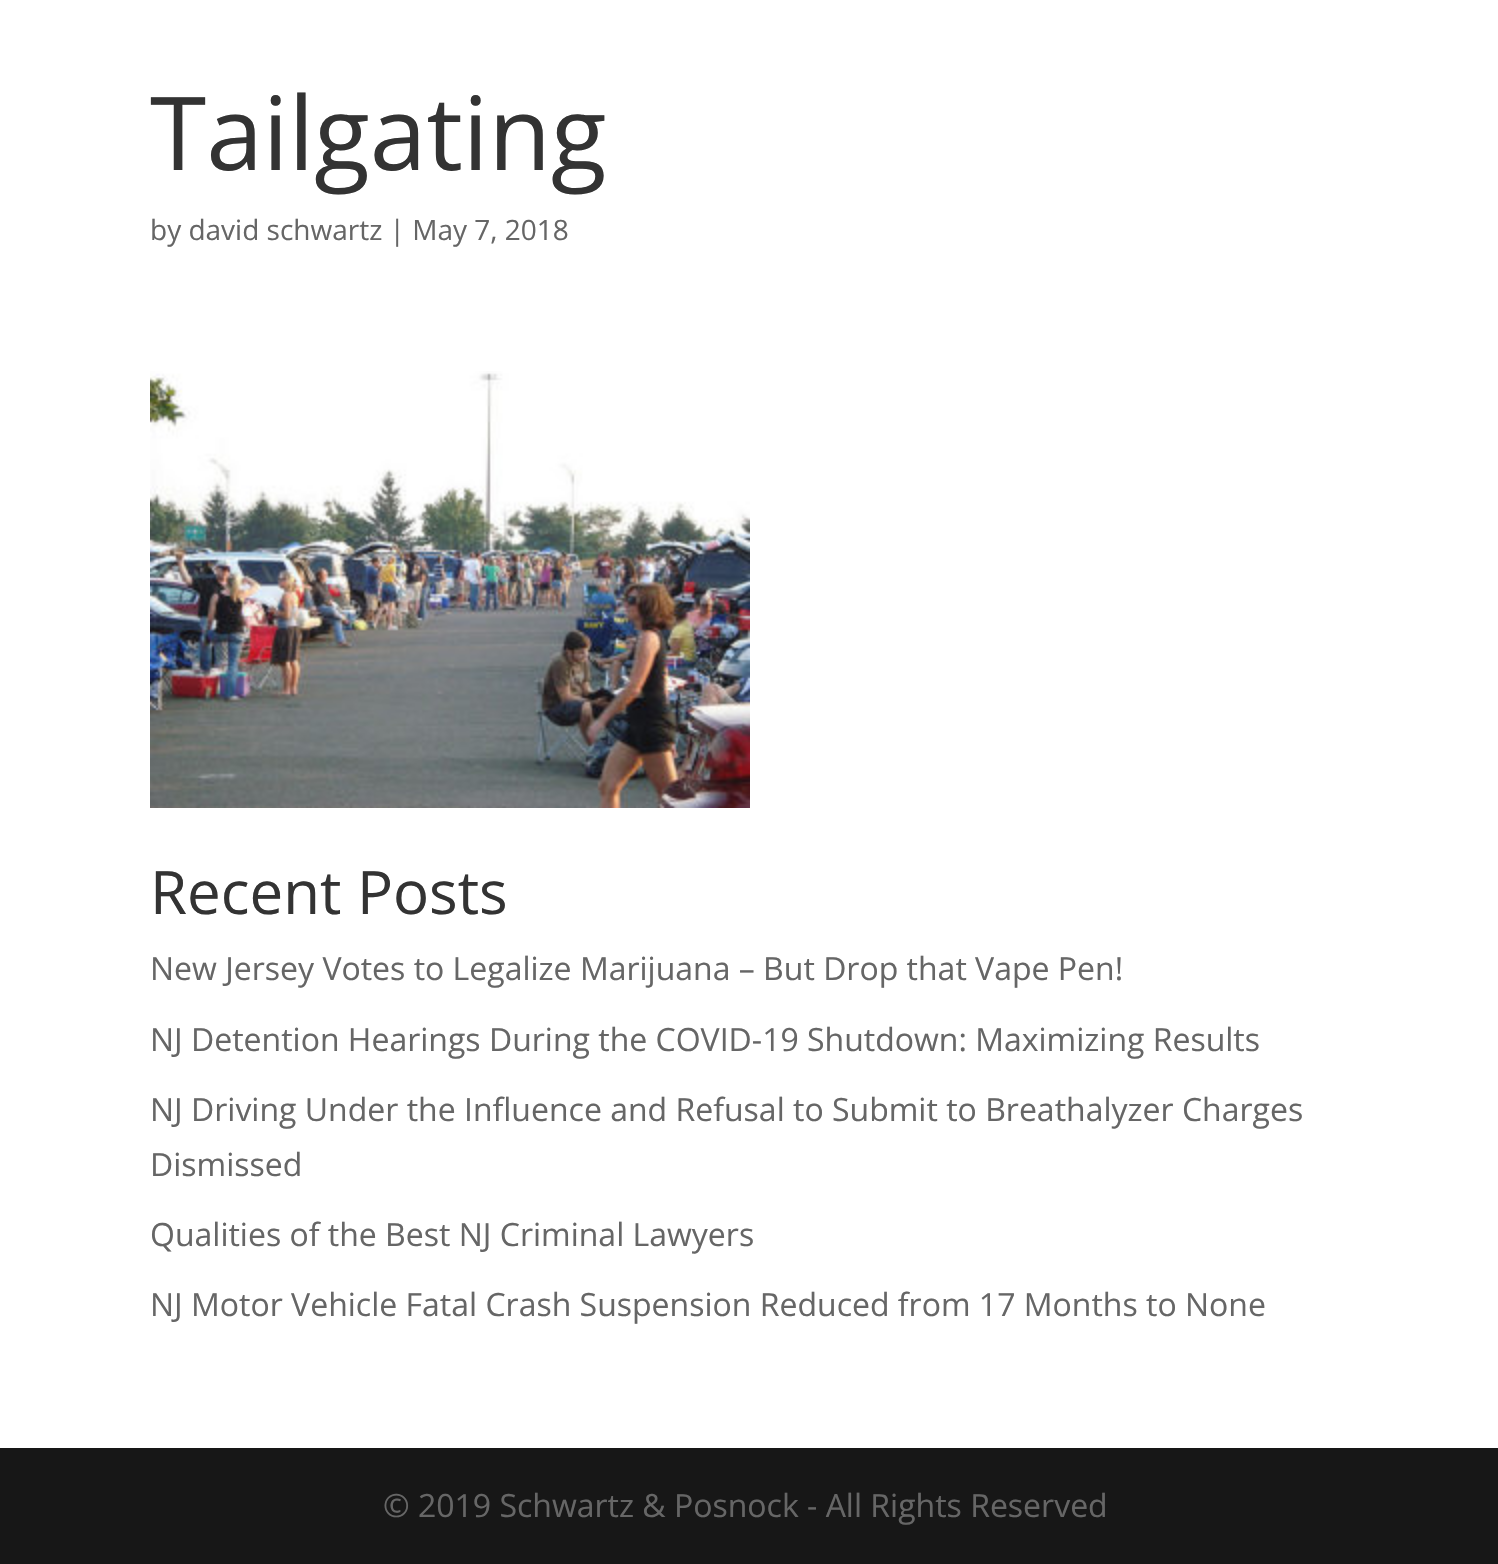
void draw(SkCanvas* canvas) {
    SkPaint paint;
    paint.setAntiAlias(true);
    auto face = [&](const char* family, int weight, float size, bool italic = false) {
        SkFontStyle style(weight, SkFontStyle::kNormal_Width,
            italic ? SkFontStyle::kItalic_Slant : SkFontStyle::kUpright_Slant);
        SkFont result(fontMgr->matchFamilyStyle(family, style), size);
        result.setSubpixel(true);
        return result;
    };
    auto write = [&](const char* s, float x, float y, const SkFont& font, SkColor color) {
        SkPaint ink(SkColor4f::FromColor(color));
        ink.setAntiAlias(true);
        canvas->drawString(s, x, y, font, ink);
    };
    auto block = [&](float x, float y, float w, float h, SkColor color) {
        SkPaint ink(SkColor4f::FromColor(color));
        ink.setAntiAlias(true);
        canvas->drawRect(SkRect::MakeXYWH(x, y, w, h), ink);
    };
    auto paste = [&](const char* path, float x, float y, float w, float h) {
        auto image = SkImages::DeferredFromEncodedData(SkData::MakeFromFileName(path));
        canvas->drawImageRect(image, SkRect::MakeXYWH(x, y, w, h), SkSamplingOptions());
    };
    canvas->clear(SK_ColorWHITE);
    auto kFont1 = face("Open Sans", 400, 102);
    write("Tailgating", 150, 170, kFont1, SkColorSetRGB(51, 51, 51));
    auto kFont2 = face("Open Sans", 400, 28);
    write("by david schwartz | May 7, 2018", 150, 240, kFont2, SkColorSetRGB(102, 102, 102));
    paste("pic1.png", 150, 371, 600, 437);
    auto kFont3 = face("Open Sans", 400, 60);
    write("Recent Posts", 150, 914, kFont3, SkColorSetRGB(51, 51, 51));
    auto kFont4 = face("Open Sans", 400, 32);
    write("New Jersey Votes to Legalize Marijuana – But Drop that Vape Pen!", 150, 980, kFont4, SkColorSetRGB(102, 102, 102));
    write("NJ Detention Hearings During the COVID-19 Shutdown: Maximizing Results", 150, 1051, kFont4, SkColorSetRGB(102, 102, 102));
    write("NJ Driving Under the Influence and Refusal to Submit to Breathalyzer Charges", 150, 1121, kFont4, SkColorSetRGB(102, 102, 102));
    write("Dismissed", 150, 1176, kFont4, SkColorSetRGB(102, 102, 102));
    write("Qualities of the Best NJ Criminal Lawyers", 150, 1246, kFont4, SkColorSetRGB(102, 102, 102));
    write("NJ Motor Vehicle Fatal Crash Suspension Reduced from 17 Months to None", 150, 1316, kFont4, SkColorSetRGB(102, 102, 102));
    block(0, 1448, 1498, 116, SkColorSetRGB(23, 23, 23));
    write("© 2019 Schwartz & Posnock - All Rights Reserved", 383, 1517, kFont4, SkColorSetRGB(102, 102, 102));
}
